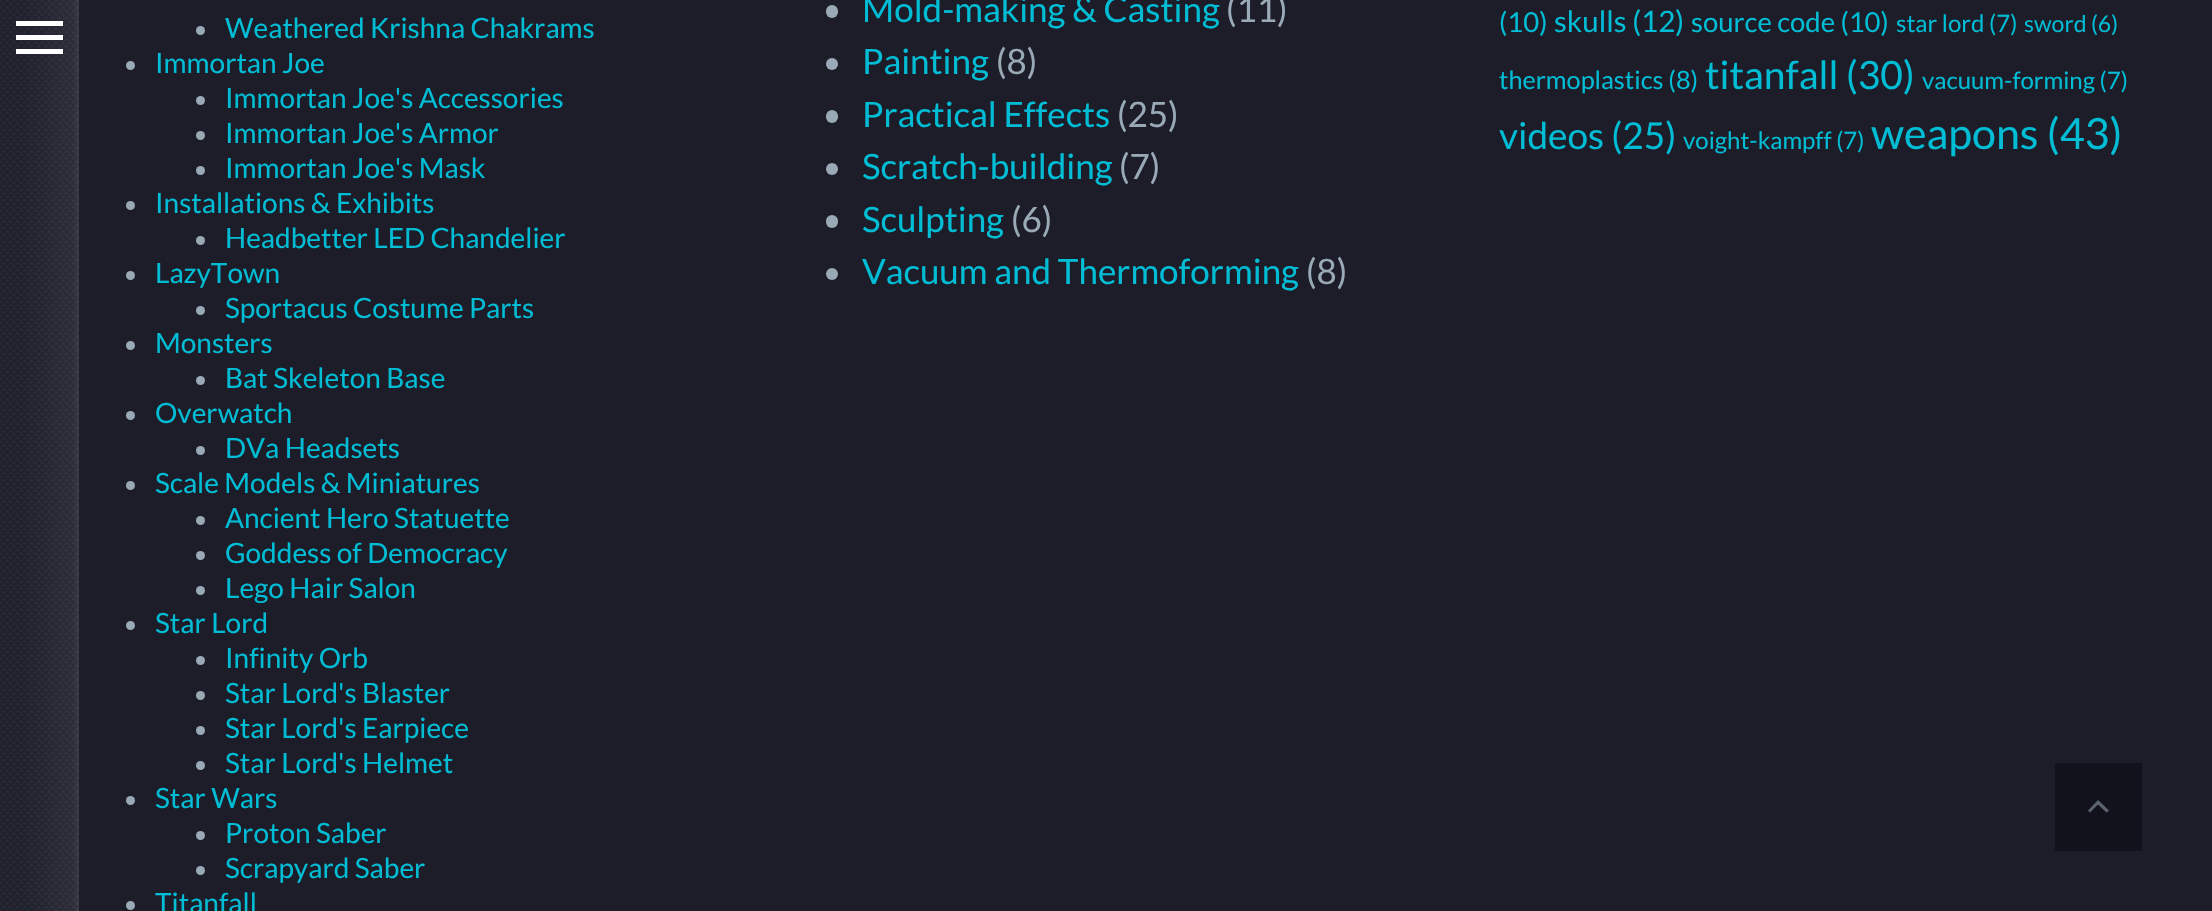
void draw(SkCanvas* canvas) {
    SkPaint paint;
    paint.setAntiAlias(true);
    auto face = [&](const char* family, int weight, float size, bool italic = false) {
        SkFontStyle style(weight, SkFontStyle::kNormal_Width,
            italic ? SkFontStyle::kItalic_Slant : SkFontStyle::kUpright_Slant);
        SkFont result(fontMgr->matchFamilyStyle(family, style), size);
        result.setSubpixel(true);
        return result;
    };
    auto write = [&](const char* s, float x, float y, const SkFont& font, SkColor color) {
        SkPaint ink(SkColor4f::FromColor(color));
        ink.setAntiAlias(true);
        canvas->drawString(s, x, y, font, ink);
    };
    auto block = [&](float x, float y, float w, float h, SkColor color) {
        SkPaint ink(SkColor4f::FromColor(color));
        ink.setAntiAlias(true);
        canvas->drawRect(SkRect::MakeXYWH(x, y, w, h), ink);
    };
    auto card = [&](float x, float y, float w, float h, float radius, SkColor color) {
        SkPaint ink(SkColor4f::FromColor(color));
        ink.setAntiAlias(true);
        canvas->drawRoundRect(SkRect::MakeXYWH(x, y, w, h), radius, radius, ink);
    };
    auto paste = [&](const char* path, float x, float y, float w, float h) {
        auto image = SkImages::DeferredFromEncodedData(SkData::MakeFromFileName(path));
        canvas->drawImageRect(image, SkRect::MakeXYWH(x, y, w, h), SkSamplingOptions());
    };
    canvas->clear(SkColorSetRGB(28, 29, 40));
    block(0, 0, 79, 911, SkColorSetRGB(33, 35, 49));
    paste("pic1.png", 0, 0, 79, 911);
    block(16, 21, 47, 5, SK_ColorWHITE);
    block(16, 35, 47, 5, SK_ColorWHITE);
    block(16, 49, 47, 5, SK_ColorWHITE);
    paint.setColor(SkColorSetRGB(153, 169, 181));
    canvas->drawCircle(200.5f, 30.5f, 4.5f, paint);
    auto kFont1 = face("Lato", 400, 28);
    write("Weathered Krishna Chakrams", 225, 38, kFont1, SkColorSetRGB(0, 188, 212));
    canvas->drawCircle(130.5f, 65.5f, 4.5f, paint);
    write("Immortan Joe", 155, 73, kFont1, SkColorSetRGB(0, 188, 212));
    canvas->drawCircle(200.5f, 100.5f, 4.5f, paint);
    write("Immortan Joe's Accessories", 225, 108, kFont1, SkColorSetRGB(0, 188, 212));
    canvas->drawCircle(200.5f, 135.5f, 4.5f, paint);
    write("Immortan Joe's Armor", 225, 143, kFont1, SkColorSetRGB(0, 188, 212));
    canvas->drawCircle(200.5f, 170.5f, 4.5f, paint);
    write("Immortan Joe's Mask", 225, 178, kFont1, SkColorSetRGB(0, 188, 212));
    canvas->drawCircle(130.5f, 205.5f, 4.5f, paint);
    write("Installations & Exhibits", 155, 213, kFont1, SkColorSetRGB(0, 188, 212));
    canvas->drawCircle(200.5f, 240.5f, 4.5f, paint);
    write("Headbetter LED Chandelier", 225, 248, kFont1, SkColorSetRGB(0, 188, 212));
    canvas->drawCircle(130.5f, 275.5f, 4.5f, paint);
    write("LazyTown", 155, 283, kFont1, SkColorSetRGB(0, 188, 212));
    canvas->drawCircle(200.5f, 310.5f, 4.5f, paint);
    write("Sportacus Costume Parts", 225, 318, kFont1, SkColorSetRGB(0, 188, 212));
    canvas->drawCircle(130.5f, 345.5f, 4.5f, paint);
    write("Monsters", 155, 353, kFont1, SkColorSetRGB(0, 188, 212));
    canvas->drawCircle(200.5f, 380.5f, 4.5f, paint);
    write("Bat Skeleton Base", 225, 388, kFont1, SkColorSetRGB(0, 188, 212));
    canvas->drawCircle(130.5f, 415.5f, 4.5f, paint);
    write("Overwatch", 155, 423, kFont1, SkColorSetRGB(0, 188, 212));
    canvas->drawCircle(200.5f, 450.5f, 4.5f, paint);
    write("DVa Headsets", 225, 458, kFont1, SkColorSetRGB(0, 188, 212));
    canvas->drawCircle(130.5f, 485.5f, 4.5f, paint);
    write("Scale Models & Miniatures", 155, 493, kFont1, SkColorSetRGB(0, 188, 212));
    canvas->drawCircle(200.5f, 520.5f, 4.5f, paint);
    write("Ancient Hero Statuette", 225, 528, kFont1, SkColorSetRGB(0, 188, 212));
    canvas->drawCircle(200.5f, 555.5f, 4.5f, paint);
    write("Goddess of Democracy", 225, 563, kFont1, SkColorSetRGB(0, 188, 212));
    canvas->drawCircle(200.5f, 590.5f, 4.5f, paint);
    write("Lego Hair Salon", 225, 598, kFont1, SkColorSetRGB(0, 188, 212));
    canvas->drawCircle(130.5f, 625.5f, 4.5f, paint);
    write("Star Lord", 155, 633, kFont1, SkColorSetRGB(0, 188, 212));
    canvas->drawCircle(200.5f, 660.5f, 4.5f, paint);
    write("Infinity Orb", 225, 668, kFont1, SkColorSetRGB(0, 188, 212));
    canvas->drawCircle(200.5f, 695.5f, 4.5f, paint);
    write("Star Lord's Blaster", 225, 703, kFont1, SkColorSetRGB(0, 188, 212));
    canvas->drawCircle(200.5f, 730.5f, 4.5f, paint);
    write("Star Lord's Earpiece", 225, 738, kFont1, SkColorSetRGB(0, 188, 212));
    canvas->drawCircle(200.5f, 765.5f, 4.5f, paint);
    write("Star Lord's Helmet", 225, 773, kFont1, SkColorSetRGB(0, 188, 212));
    canvas->drawCircle(130.5f, 800.5f, 4.5f, paint);
    write("Star Wars", 155, 808, kFont1, SkColorSetRGB(0, 188, 212));
    canvas->drawCircle(200.5f, 835.5f, 4.5f, paint);
    write("Proton Saber", 225, 843, kFont1, SkColorSetRGB(0, 188, 212));
    canvas->drawCircle(200.5f, 870.5f, 4.5f, paint);
    write("Scrapyard Saber", 225, 878, kFont1, SkColorSetRGB(0, 188, 212));
    canvas->drawCircle(130.5f, 905.5f, 4.5f, paint);
    write("Titanfall", 155, 913, kFont1, SkColorSetRGB(0, 188, 212));
    card(826, 5, 12, 13, 6, SkColorSetRGB(153, 169, 181));
    auto kFont2 = face("Lato", 400, 35);
    write("Mold-making & Casting", 862, 22, kFont2, SkColorSetRGB(0, 188, 212));
    write("(11)", 1226, 22, kFont2, SkColorSetRGB(153, 169, 181));
    canvas->drawCircle(832, 64, 6, paint);
    write("Painting", 862, 74, kFont2, SkColorSetRGB(0, 188, 212));
    write("(8)", 996, 74, kFont2, SkColorSetRGB(153, 169, 181));
    card(826, 110, 12, 13, 6, SkColorSetRGB(153, 169, 181));
    write("Practical Effects", 862, 127, kFont2, SkColorSetRGB(0, 188, 212));
    write("(25)", 1117, 127, kFont2, SkColorSetRGB(153, 169, 181));
    canvas->drawCircle(832, 169, 6, paint);
    write("Scratch-building", 862, 179, kFont2, SkColorSetRGB(0, 188, 212));
    write("(7)", 1119, 179, kFont2, SkColorSetRGB(153, 169, 181));
    card(826, 215, 12, 13, 6, SkColorSetRGB(153, 169, 181));
    write("Sculpting", 862, 232, kFont2, SkColorSetRGB(0, 188, 212));
    write("(6)", 1011, 232, kFont2, SkColorSetRGB(153, 169, 181));
    canvas->drawCircle(832, 274, 6, paint);
    write("Vacuum and Thermoforming", 862, 284, kFont2, SkColorSetRGB(0, 188, 212));
    write("(8)", 1306, 284, kFont2, SkColorSetRGB(153, 169, 181));
    auto kFont3 = face("Lato", 400, 27.5f);
    write("(10)", 1499, 32, kFont3, SkColorSetRGB(0, 188, 212));
    auto kFont4 = face("Lato", 400, 29.5f);
    write("skulls (12)", 1554, 32, kFont4, SkColorSetRGB(0, 188, 212));
    write("source code (10)", 1691, 32, kFont3, SkColorSetRGB(0, 188, 212));
    auto kFont5 = face("Lato", 400, 24);
    write("star lord (7)", 1896, 32, kFont5, SkColorSetRGB(0, 188, 212));
    auto kFont6 = face("Lato", 400, 23);
    write("sword (6)", 2024, 32, kFont6, SkColorSetRGB(0, 188, 212));
    auto kFont7 = face("Lato", 400, 25.25f);
    write("thermoplastics (8)", 1499, 89, kFont7, SkColorSetRGB(0, 188, 212));
    auto kFont8 = face("Lato", 400, 39);
    write("titanfall (30)", 1705, 89, kFont8, SkColorSetRGB(0, 188, 212));
    write("vacuum-forming (7)", 1922, 89, kFont5, SkColorSetRGB(0, 188, 212));
    auto kFont9 = face("Lato", 400, 37);
    write("videos (25)", 1499, 149, kFont9, SkColorSetRGB(0, 188, 212));
    write("voight-kampff (7)", 1683, 149, kFont5, SkColorSetRGB(0, 188, 212));
    auto kFont10 = face("Lato", 400, 43);
    write("weapons (43)", 1871, 149, kFont10, SkColorSetRGB(0, 188, 212));
    block(2055, 763, 87, 88, SkColorSetRGB(17, 18, 28));
    paint.setColor(SkColorSetRGB(91, 99, 111));
    canvas->drawPath(SkPathBuilder().moveTo(2090, 812.5f).lineTo(2098, 804.5f).lineTo(2106.5f, 812.5f).lineTo(2109, 810.5f).lineTo(2098, 800).lineTo(2088, 810.5f).close().detach(), paint);
}
